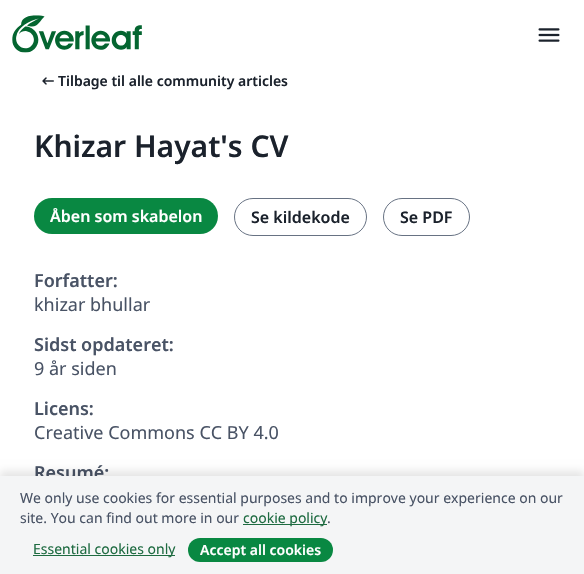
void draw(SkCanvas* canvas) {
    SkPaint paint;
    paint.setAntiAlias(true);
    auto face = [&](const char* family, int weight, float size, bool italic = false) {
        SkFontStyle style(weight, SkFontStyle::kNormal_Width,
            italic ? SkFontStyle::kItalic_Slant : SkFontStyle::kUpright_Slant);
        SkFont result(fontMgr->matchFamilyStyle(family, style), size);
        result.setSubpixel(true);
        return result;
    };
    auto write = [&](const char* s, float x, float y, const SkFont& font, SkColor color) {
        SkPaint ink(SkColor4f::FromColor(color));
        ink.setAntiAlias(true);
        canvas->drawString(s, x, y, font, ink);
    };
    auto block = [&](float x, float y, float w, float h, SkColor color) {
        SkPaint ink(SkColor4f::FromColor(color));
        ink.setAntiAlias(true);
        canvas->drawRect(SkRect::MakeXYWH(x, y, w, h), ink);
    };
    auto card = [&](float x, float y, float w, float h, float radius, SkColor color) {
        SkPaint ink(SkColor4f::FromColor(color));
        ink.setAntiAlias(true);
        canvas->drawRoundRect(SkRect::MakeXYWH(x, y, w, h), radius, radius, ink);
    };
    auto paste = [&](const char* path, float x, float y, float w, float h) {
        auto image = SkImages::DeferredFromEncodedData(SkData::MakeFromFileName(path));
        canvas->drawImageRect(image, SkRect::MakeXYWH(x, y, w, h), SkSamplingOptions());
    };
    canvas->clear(SK_ColorWHITE);
    paste("pic1.png", 12, 15, 130, 38);
    paste("pic2.png", 538, 28, 22, 14);
    paste("pic3.png", 42, 77, 12, 8);
    auto kFont1 = face("Noto Sans", 600, 14);
    write("Tilbage til alle community articles", 58, 86, kFont1, SkColorSetRGB(27, 34, 44));
    auto kFont2 = face("Noto Sans", 600, 30);
    write("Khizar Hayat's CV", 34, 157, kFont2, SkColorSetRGB(27, 34, 44));
    card(34, 198, 184, 36, 18, SkColorSetRGB(9, 136, 66));
    auto kFont3 = face("Noto Sans", 600, 16);
    write("Åben som skabelon", 50, 222, kFont3, SK_ColorWHITE);
    paint.setStyle(SkPaint::kStroke_Style);
    paint.setStrokeWidth(1);
    paint.setColor(SkColorSetRGB(103, 114, 131));
    canvas->drawRoundRect(SkRect::MakeXYWH(234.5f, 198.5f, 132, 37), 18.5f, 18.5f, paint);
    write("Se kildekode", 251, 223, kFont3, SkColorSetRGB(27, 34, 44));
    canvas->drawRoundRect(SkRect::MakeXYWH(383.5f, 198.5f, 86, 37), 18.5f, 18.5f, paint);
    write("Se PDF", 400, 223, kFont3, SkColorSetRGB(27, 34, 44));
    auto kFont4 = face("Noto Sans", 600, 18);
    write("Forfatter:", 34, 287, kFont4, SkColorSetRGB(73, 83, 101));
    auto kFont5 = face("Noto Sans", 400, 18);
    write("khizar bhullar", 34, 311, kFont5, SkColorSetRGB(73, 83, 101));
    write("Sidst opdateret:", 34, 351, kFont4, SkColorSetRGB(73, 83, 101));
    write("9 år siden", 34, 375, kFont5, SkColorSetRGB(73, 83, 101));
    write("Licens:", 34, 415, kFont4, SkColorSetRGB(73, 83, 101));
    write("Creative Commons CC BY 4.0", 34, 439, kFont5, SkColorSetRGB(73, 83, 101));
    write("Resumé:", 34, 479, kFont4, SkColorSetRGB(73, 83, 101));
    paint.setStyle(SkPaint::kFill_Style);
    paint.setColor(SkColorSetARGB(26, 0, 0, 0));
    paint.setMaskFilter(SkMaskFilter::MakeBlur(kNormal_SkBlurStyle, 4));
    canvas->drawRect(SkRect::MakeXYWH(0, 471, 584, 98), paint);
    paint.setMaskFilter(nullptr);
    block(0, 476, 584, 98, SkColorSetRGB(244, 245, 246));
    auto kFont6 = face("Noto Sans", 400, 14);
    write("We only use cookies for essential purposes and to improve your experience on our", 20, 503, kFont6, SkColorSetRGB(73, 83, 101));
    write("site. You can find out more in our", 20, 523, kFont6, SkColorSetRGB(73, 83, 101));
    block(243, 524, 84, 1, SkColorSetRGB(30, 107, 65));
    write("cookie policy", 243, 523, kFont6, SkColorSetRGB(30, 107, 65));
    write(".", 327, 523, kFont6, SkColorSetRGB(73, 83, 101));
    block(33, 555, 142, 1, SkColorSetRGB(30, 107, 65));
    write("Essential cookies only", 33, 554, kFont6, SkColorSetRGB(30, 107, 65));
    card(188, 538, 145, 24, 12, SkColorSetRGB(9, 136, 66));
    write("Accept all cookies", 200, 555, kFont1, SK_ColorWHITE);
}
